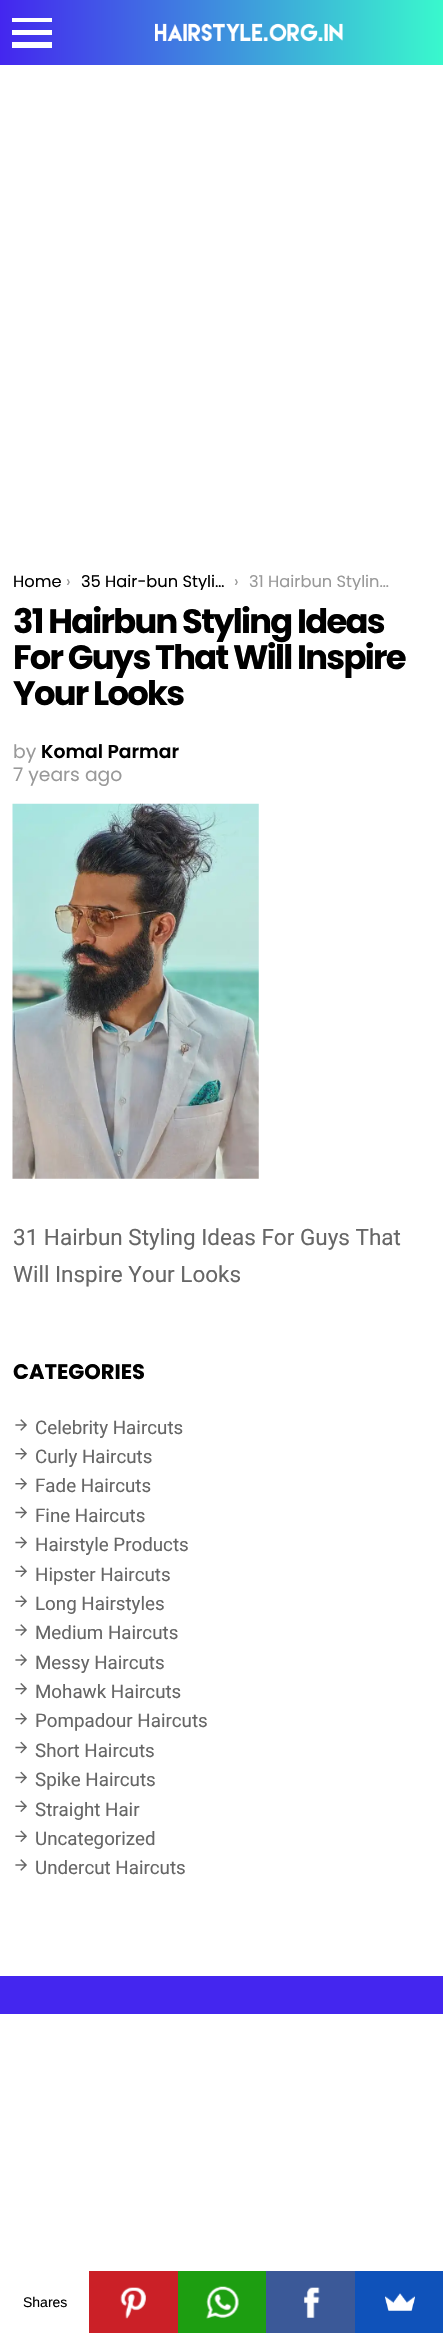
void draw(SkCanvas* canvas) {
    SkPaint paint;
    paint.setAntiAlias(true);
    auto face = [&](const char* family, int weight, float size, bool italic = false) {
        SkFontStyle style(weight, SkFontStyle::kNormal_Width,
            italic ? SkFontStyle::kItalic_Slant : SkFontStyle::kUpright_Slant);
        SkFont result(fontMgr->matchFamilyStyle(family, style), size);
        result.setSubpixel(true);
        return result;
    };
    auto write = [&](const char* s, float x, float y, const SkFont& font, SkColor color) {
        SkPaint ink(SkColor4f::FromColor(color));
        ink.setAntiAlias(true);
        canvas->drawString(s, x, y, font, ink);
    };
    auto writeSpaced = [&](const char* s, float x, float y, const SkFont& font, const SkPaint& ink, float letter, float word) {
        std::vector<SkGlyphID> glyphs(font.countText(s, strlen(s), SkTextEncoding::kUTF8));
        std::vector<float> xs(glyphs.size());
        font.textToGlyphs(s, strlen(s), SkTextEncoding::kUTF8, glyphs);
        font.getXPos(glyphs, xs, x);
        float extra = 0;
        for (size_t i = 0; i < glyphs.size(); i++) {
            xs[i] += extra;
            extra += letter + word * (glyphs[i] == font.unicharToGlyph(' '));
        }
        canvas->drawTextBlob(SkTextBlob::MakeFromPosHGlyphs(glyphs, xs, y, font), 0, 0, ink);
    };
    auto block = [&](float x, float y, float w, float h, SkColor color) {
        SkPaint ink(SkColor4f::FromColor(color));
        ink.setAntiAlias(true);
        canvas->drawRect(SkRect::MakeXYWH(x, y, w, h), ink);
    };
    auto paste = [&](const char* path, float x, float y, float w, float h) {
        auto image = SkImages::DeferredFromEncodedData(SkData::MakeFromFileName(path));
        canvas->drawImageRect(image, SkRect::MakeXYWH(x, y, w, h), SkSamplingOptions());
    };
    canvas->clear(SK_ColorWHITE);
    {
        const SkColor colors[] = {SkColorSetRGB(68, 38, 239), SkColorSetRGB(57, 249, 205)};
        const float stops[] = {0, 1};
        const SkPoint ends[] = {{0, 33}, {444, 32}};
        paint.setShader(SkGradientShader::MakeLinear(ends, colors, stops, 2, SkTileMode::kClamp));
        paint.setAlpha(255);
    }
    canvas->drawRect(SkRect::MakeXYWH(0, 0, 443, 65), paint);
    paint.setShader(nullptr);
    paint.setColor(SK_ColorWHITE);
    canvas->drawPath(SkPathBuilder().moveTo(12, 18).lineTo(52, 18).lineTo(52, 22).lineTo(12, 22).close().moveTo(12, 30).lineTo(52, 30).lineTo(52, 35).lineTo(12, 35).close().moveTo(12, 42).lineTo(52, 42).lineTo(52, 48).lineTo(12, 48).close().detach(), paint);
    paste("pic1.png", 155, 23, 188, 18);
    auto kFont1 = face("Poppins", 400, 16.25f);
    write("Home", 13, 587, kFont1, SK_ColorBLACK);
    write("›", 66, 587, kFont1, SkColorSetRGB(153, 153, 153));
    canvas->save();
    canvas->clipRect(SkRect::MakeXYWH(66, 571, 163, 19));
    write("35 Hair-bun Styli…", 81, 587, kFont1, SK_ColorBLACK);
    canvas->restore();
    write("›", 234, 587, kFont1, SkColorSetRGB(153, 153, 153));
    canvas->save();
    canvas->clipRect(SkRect::MakeXYWH(234, 571, 162, 19));
    write("31 Hairbun Stylin…", 249, 587, kFont1, SkColorSetRGB(153, 153, 153));
    canvas->restore();
    auto kFont2 = face("Poppins", 700, 33.75f);
    paint.setColor(SK_ColorBLACK);
    writeSpaced("31 Hairbun Styling Ideas", 13, 633, kFont2, paint, -1.7f, 0);
    writeSpaced("For Guys That Will Inspire", 13, 669, kFont2, paint, -1.7f, 0);
    writeSpaced("Your Looks", 13, 705, kFont2, paint, -1.7f, 0);
    auto kFont3 = face("Poppins", 400, 18.75f);
    write("by", 13, 758, kFont3, SkColorSetRGB(153, 153, 153));
    auto kFont4 = face("Poppins", 600, 18.75f);
    write("Komal Parmar", 41, 758, kFont4, SK_ColorBLACK);
    write("7 years ago", 13, 781, kFont3, SkColorSetRGB(153, 153, 153));
    paste("pic2.png", 12, 803, 247, 376);
    auto kFont5 = face("Roboto", 400, 22.5f);
    write("31 Hairbun Styling Ideas For Guys That", 13, 1245, kFont5, SkColorSetRGB(102, 102, 102));
    write("Will Inspire Your Looks", 13, 1282, kFont5, SkColorSetRGB(102, 102, 102));
    auto kFont6 = face("Poppins", 700, 21);
    write("CATEGORIES", 13, 1379, kFont6, SK_ColorBLACK);
    paste("pic3.png", 15, 1419, 12, 12);
    auto kFont7 = face("Roboto", 400, 18.75f);
    write("Celebrity Haircuts", 35, 1434, kFont7, SkColorSetRGB(102, 102, 102));
    paste("pic4.png", 15, 1448, 12, 12);
    write("Curly Haircuts", 35, 1463, kFont7, SkColorSetRGB(102, 102, 102));
    paste("pic4.png", 15, 1478, 12, 12);
    write("Fade Haircuts", 35, 1492, kFont7, SkColorSetRGB(102, 102, 102));
    paste("pic5.png", 15, 1506, 12, 13);
    write("Fine Haircuts", 35, 1522, kFont7, SkColorSetRGB(102, 102, 102));
    paste("pic5.png", 15, 1536, 12, 13);
    write("Hairstyle Products", 35, 1551, kFont7, SkColorSetRGB(102, 102, 102));
    paste("pic6.png", 15, 1565, 12, 12);
    write("Hipster Haircuts", 35, 1581, kFont7, SkColorSetRGB(102, 102, 102));
    paste("pic6.png", 15, 1595, 12, 12);
    write("Long Hairstyles", 35, 1610, kFont7, SkColorSetRGB(102, 102, 102));
    paste("pic3.png", 15, 1624, 12, 12);
    write("Medium Haircuts", 35, 1639, kFont7, SkColorSetRGB(102, 102, 102));
    paste("pic3.png", 15, 1654, 12, 12);
    write("Messy Haircuts", 35, 1669, kFont7, SkColorSetRGB(102, 102, 102));
    paste("pic4.png", 15, 1683, 12, 12);
    write("Mohawk Haircuts", 35, 1698, kFont7, SkColorSetRGB(102, 102, 102));
    paste("pic4.png", 15, 1713, 12, 12);
    write("Pompadour Haircuts", 35, 1727, kFont7, SkColorSetRGB(102, 102, 102));
    paste("pic5.png", 15, 1741, 12, 13);
    write("Short Haircuts", 35, 1757, kFont7, SkColorSetRGB(102, 102, 102));
    paste("pic5.png", 15, 1771, 12, 13);
    write("Spike Haircuts", 35, 1786, kFont7, SkColorSetRGB(102, 102, 102));
    paste("pic6.png", 15, 1800, 12, 12);
    write("Straight Hair", 35, 1816, kFont7, SkColorSetRGB(102, 102, 102));
    paste("pic6.png", 15, 1830, 12, 12);
    write("Uncategorized", 35, 1845, kFont7, SkColorSetRGB(102, 102, 102));
    paste("pic3.png", 15, 1859, 12, 12);
    write("Undercut Haircuts", 35, 1874, kFont7, SkColorSetRGB(102, 102, 102));
    block(0, 1976, 443, 38, SkColorSetRGB(68, 38, 239));
    auto kFont8 = face("Liberation Sans", 400, 14);
    write("Shares", 23, 2307, kFont8, SK_ColorBLACK);
    block(89, 2271, 89, 62, SkColorSetRGB(203, 32, 39));
    paste("pic7.png", 120, 2287, 26, 32);
    block(178, 2271, 88, 62, SkColorSetRGB(29, 158, 17));
    paste("pic8.png", 206, 2286, 33, 33);
    block(266, 2271, 89, 62, SkColorSetRGB(59, 89, 152));
    paste("pic9.png", 304, 2287, 16, 31);
    block(355, 2271, 88, 62, SkColorSetRGB(15, 82, 186));
    paste("pic10.png", 385, 2293, 30, 18);
}
